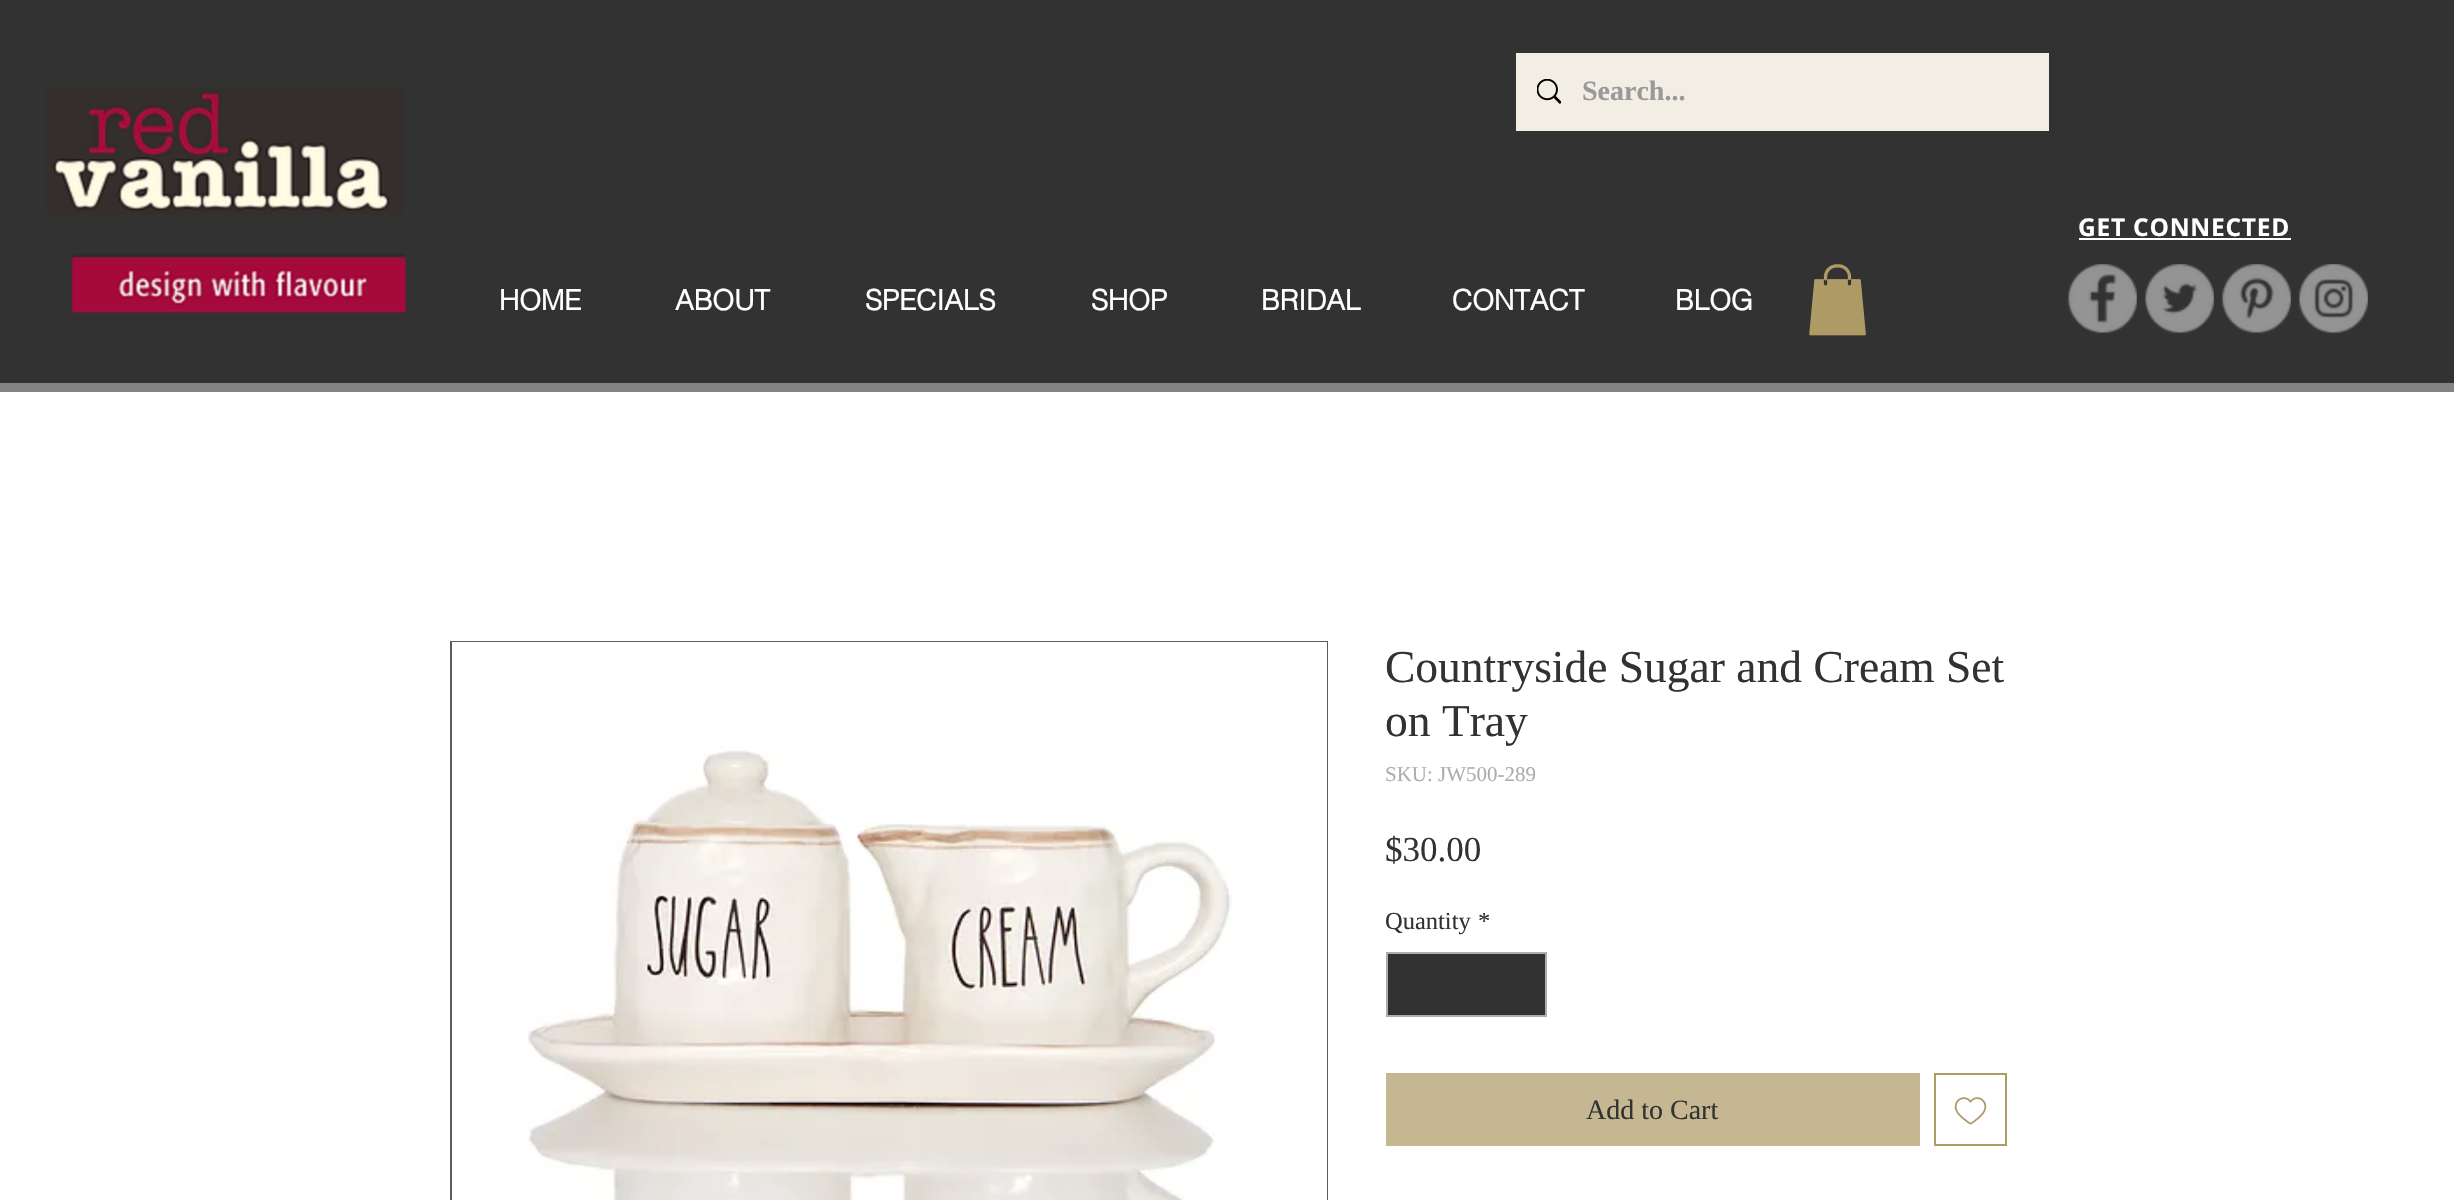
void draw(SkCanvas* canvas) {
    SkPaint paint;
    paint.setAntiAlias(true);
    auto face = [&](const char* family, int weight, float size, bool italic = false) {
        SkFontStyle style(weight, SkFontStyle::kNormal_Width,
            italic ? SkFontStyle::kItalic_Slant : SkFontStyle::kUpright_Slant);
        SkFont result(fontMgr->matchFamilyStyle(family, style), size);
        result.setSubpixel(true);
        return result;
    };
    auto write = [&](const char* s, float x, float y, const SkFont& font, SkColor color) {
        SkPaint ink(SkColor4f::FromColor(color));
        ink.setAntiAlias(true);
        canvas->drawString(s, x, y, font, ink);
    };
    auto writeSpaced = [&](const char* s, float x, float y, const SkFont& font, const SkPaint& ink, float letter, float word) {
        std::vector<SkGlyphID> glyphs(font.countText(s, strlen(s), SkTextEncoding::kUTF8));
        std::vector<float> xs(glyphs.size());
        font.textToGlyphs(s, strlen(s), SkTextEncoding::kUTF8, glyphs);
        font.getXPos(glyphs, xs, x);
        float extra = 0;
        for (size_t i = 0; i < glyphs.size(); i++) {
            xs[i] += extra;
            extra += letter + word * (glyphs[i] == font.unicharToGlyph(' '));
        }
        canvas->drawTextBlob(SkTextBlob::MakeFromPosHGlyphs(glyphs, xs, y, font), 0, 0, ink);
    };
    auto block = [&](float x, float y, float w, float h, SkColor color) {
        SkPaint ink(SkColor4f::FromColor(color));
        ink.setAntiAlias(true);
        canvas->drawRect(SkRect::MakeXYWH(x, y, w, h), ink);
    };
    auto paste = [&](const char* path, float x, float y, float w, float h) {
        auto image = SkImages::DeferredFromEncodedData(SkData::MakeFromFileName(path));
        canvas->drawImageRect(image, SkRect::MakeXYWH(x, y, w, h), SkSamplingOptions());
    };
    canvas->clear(SK_ColorWHITE);
    block(0, 0, 2454, 383, SkColorSetRGB(50, 50, 50));
    block(0, 383, 2454, 9, SkColorSetRGB(132, 132, 132));
    paste("pic1.png", 46, 88, 358, 127);
    block(1516, 53, 533, 78, SkColorSetRGB(242, 238, 228));
    paste("pic2.png", 1537, 79, 24, 25);
    auto kFont1 = face("Liberation Serif", 700, 28);
    write("Search...", 1582, 100, kFont1, SkColorSetRGB(153, 153, 153));
    auto kFont2 = face("Open Sans", 700, 24.5f);
    paint.setColor(SK_ColorWHITE);
    writeSpaced("GET CONNECTED", 2078, 236, kFont2, paint, 0.75f, 0);
    block(2079, 238, 212, 2, SK_ColorWHITE);
    paste("pic3.png", 71, 253, 335, 61);
    auto kFont3 = face("helvetica", 700, 28);
    write("HOME", 499, 310, kFont3, SK_ColorWHITE);
    write("ABOUT", 675, 310, kFont3, SK_ColorWHITE);
    write("SPECIALS", 865, 310, kFont3, SK_ColorWHITE);
    write("SHOP", 1091, 310, kFont3, SK_ColorWHITE);
    write("BRIDAL", 1261, 310, kFont3, SK_ColorWHITE);
    write("CONTACT", 1452, 310, kFont3, SK_ColorWHITE);
    write("BLOG", 1675, 310, kFont3, SK_ColorWHITE);
    paste("pic4.png", 1809, 264, 57, 72);
    paste("pic5.png", 2067, 264, 70, 70);
    paste("pic6.png", 2144, 264, 70, 70);
    paste("pic7.png", 2221, 264, 70, 70);
    paste("pic8.png", 2298, 264, 70, 70);
    paint.setStyle(SkPaint::kStroke_Style);
    paint.setStrokeWidth(2);
    paint.setColor(SkColorSetRGB(91, 91, 91));
    canvas->drawRect(SkRect::MakeXYWH(451, 642, 876, 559), paint);
    paste("pic9.png", 452, 642, 875, 558);
    auto kFont4 = face("Liberation Serif", 400, 45.5f);
    write("Countryside Sugar and Cream Set", 1385, 682, kFont4, SkColorSetRGB(50, 50, 50));
    write("on Tray", 1385, 736, kFont4, SkColorSetRGB(50, 50, 50));
    auto kFont5 = face("Liberation Serif", 400, 21);
    write("SKU: JW500-289", 1385, 781, kFont5, SkColorSetRGB(173, 173, 173));
    auto kFont6 = face("Liberation Serif", 400, 35);
    write("$30.00", 1385, 861, kFont6, SkColorSetRGB(50, 50, 50));
    auto kFont7 = face("Liberation Serif", 400, 24.5f);
    write("Quantity", 1385, 929, kFont7, SkColorSetRGB(50, 50, 50));
    write("*", 1478, 929, kFont7, SkColorSetRGB(50, 50, 50));
    paint.setStyle(SkPaint::kFill_Style);
    paint.setColor(SkColorSetRGB(50, 50, 50));
    canvas->drawRect(SkRect::MakeXYWH(1387, 953, 159, 63), paint);
    paint.setStyle(SkPaint::kStroke_Style);
    paint.setColor(SkColorSetRGB(173, 173, 173));
    canvas->drawRect(SkRect::MakeXYWH(1387, 953, 159, 63), paint);
    block(1386, 1073, 534, 73, SkColorSetRGB(197, 183, 145));
    auto kFont8 = face("Liberation Serif", 400, 28);
    write("Add to Cart", 1586, 1119, kFont8, SkColorSetRGB(50, 50, 50));
    paint.setColor(SkColorSetRGB(174, 154, 100));
    canvas->drawRect(SkRect::MakeXYWH(1935, 1074, 71, 71), paint);
    paste("pic10.png", 1954, 1097, 33, 28);
}
